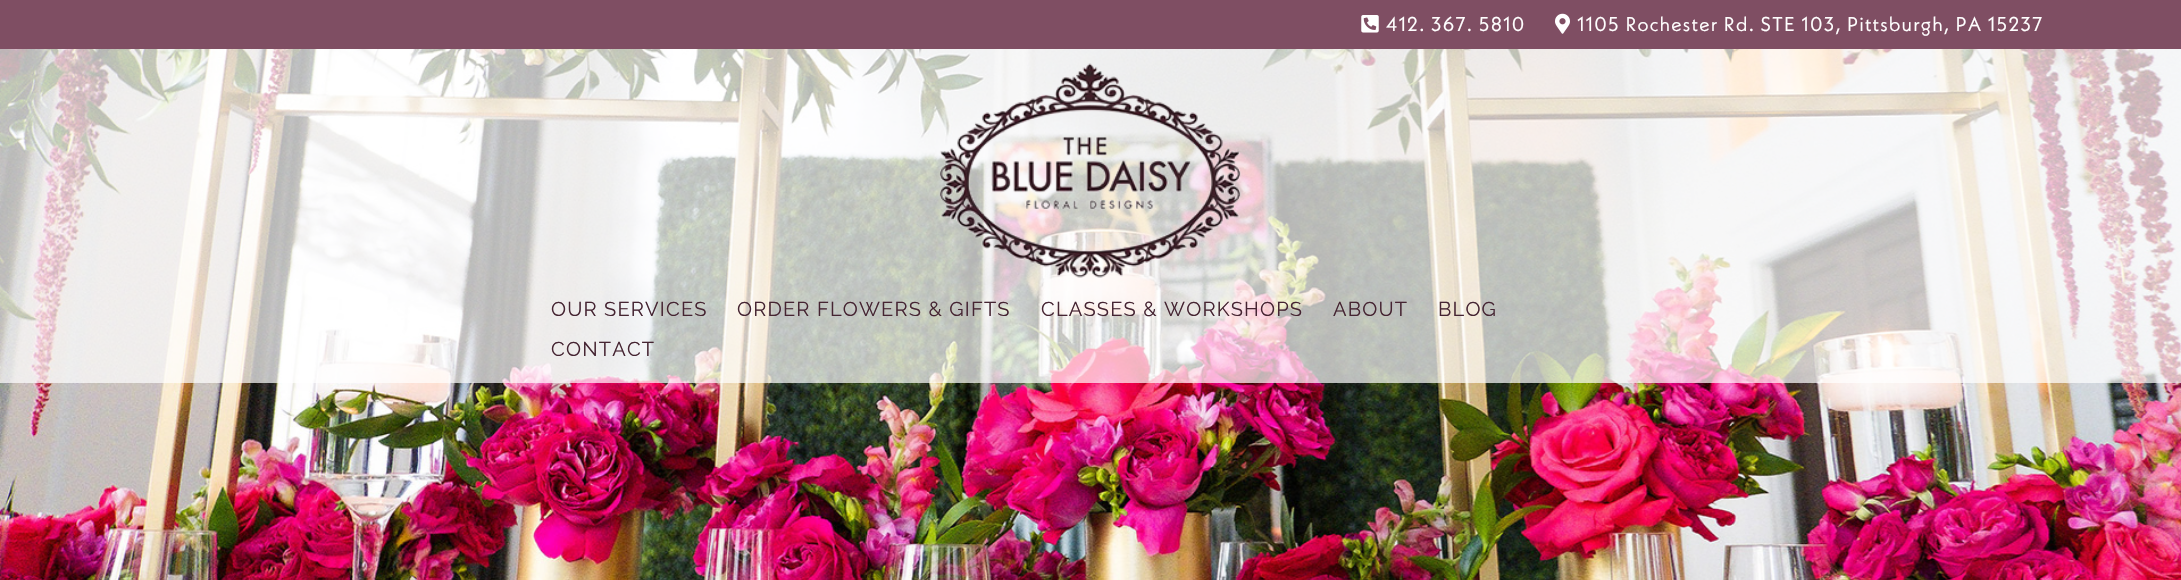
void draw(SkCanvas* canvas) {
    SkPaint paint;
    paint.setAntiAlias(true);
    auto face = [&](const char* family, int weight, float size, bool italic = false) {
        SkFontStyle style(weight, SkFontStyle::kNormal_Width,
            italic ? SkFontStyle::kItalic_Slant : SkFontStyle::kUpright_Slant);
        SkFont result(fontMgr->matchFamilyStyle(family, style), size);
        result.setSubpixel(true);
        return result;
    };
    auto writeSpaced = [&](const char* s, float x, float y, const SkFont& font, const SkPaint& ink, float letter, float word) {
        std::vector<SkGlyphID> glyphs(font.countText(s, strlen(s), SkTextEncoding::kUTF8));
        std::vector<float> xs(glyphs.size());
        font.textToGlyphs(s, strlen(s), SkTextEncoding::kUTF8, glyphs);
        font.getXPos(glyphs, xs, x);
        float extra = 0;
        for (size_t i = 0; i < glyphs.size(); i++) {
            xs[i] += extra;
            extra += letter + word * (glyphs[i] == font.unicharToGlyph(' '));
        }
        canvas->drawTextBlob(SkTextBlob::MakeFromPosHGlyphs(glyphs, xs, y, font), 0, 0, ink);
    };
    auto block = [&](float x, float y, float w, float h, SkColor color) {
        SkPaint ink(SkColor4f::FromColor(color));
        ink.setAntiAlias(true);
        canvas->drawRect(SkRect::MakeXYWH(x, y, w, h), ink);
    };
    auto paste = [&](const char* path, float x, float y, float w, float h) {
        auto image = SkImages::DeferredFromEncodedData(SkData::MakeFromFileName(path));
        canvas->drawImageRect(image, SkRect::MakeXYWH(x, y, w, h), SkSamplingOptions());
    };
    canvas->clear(SK_ColorWHITE);
    paste("pic4.png", 0, 49, 2181, 531);
    block(0, 49, 2181, 334, SkColorSetARGB(179, 255, 255, 255));
    block(0, 0, 2181, 49, SkColorSetRGB(127, 78, 99));
    paste("pic1.png", 1361, 15, 18, 18);
    auto kFont1 = face("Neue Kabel", 400, 20);
    paint.setColor(SK_ColorWHITE);
    writeSpaced("412. 367. 5810", 1386, 31, kFont1, paint, 1.2f, 0);
    paste("pic2.png", 1555, 13, 15, 21);
    writeSpaced("1105 Rochester Rd. STE 103, Pittsburgh, PA 15237", 1577, 31, kFont1, paint, 1.2f, 0);
    paste("pic3.png", 939, 63, 303, 215);
    auto kFont2 = face("Raleway", 400, 20);
    paint.setColor(SkColorSetRGB(69, 36, 50));
    writeSpaced("OUR SERVICES", 551, 316, kFont2, paint, 1.2f, 0);
    writeSpaced("ORDER FLOWERS & GIFTS", 737, 316, kFont2, paint, 1.2f, 0);
    writeSpaced("CLASSES & WORKSHOPS", 1041, 316, kFont2, paint, 1.2f, 0);
    writeSpaced("ABOUT", 1333, 316, kFont2, paint, 1.2f, 0);
    writeSpaced("BLOG", 1438, 316, kFont2, paint, 1.2f, 0);
    writeSpaced("CONTACT", 551, 356, kFont2, paint, 1.2f, 0);
}
